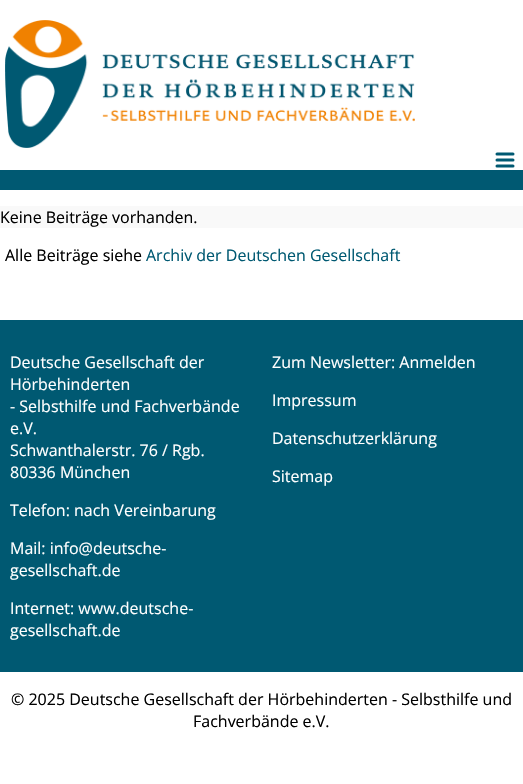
void draw(SkCanvas* canvas) {
    SkPaint paint;
    paint.setAntiAlias(true);
    auto face = [&](const char* family, int weight, float size, bool italic = false) {
        SkFontStyle style(weight, SkFontStyle::kNormal_Width,
            italic ? SkFontStyle::kItalic_Slant : SkFontStyle::kUpright_Slant);
        SkFont result(fontMgr->matchFamilyStyle(family, style), size);
        result.setSubpixel(true);
        return result;
    };
    auto write = [&](const char* s, float x, float y, const SkFont& font, SkColor color) {
        SkPaint ink(SkColor4f::FromColor(color));
        ink.setAntiAlias(true);
        canvas->drawString(s, x, y, font, ink);
    };
    auto block = [&](float x, float y, float w, float h, SkColor color) {
        SkPaint ink(SkColor4f::FromColor(color));
        ink.setAntiAlias(true);
        canvas->drawRect(SkRect::MakeXYWH(x, y, w, h), ink);
    };
    auto paste = [&](const char* path, float x, float y, float w, float h) {
        auto image = SkImages::DeferredFromEncodedData(SkData::MakeFromFileName(path));
        canvas->drawImageRect(image, SkRect::MakeXYWH(x, y, w, h), SkSamplingOptions());
    };
    canvas->clear(SK_ColorWHITE);
    paste("pic1.png", 5, 20, 410, 128);
    paint.setStyle(SkPaint::kStroke_Style);
    paint.setStrokeWidth(3);
    paint.setStrokeCap(SkPaint::kRound_Cap);
    paint.setColor(SkColorSetRGB(0, 89, 114));
    canvas->drawPath(SkPathBuilder().moveTo(497, 166).lineTo(513, 166).moveTo(497, 160).lineTo(513, 160).moveTo(497, 154).lineTo(513, 154).detach(), paint);
    block(0, 170, 523, 20, SkColorSetRGB(0, 89, 114));
    block(0, 206, 523, 22, SkColorSetRGB(249, 249, 249));
    auto kFont1 = face("Open Sans", 400, 16);
    write("Keine Beiträge vorhanden.", 0, 223, kFont1, SK_ColorBLACK);
    write("Alle Beiträge siehe", 5, 261, kFont1, SK_ColorBLACK);
    write("Archiv der Deutschen Gesellschaft", 146, 261, kFont1, SkColorSetRGB(0, 89, 114));
    block(0, 320, 523, 352, SkColorSetRGB(0, 89, 114));
    write("Deutsche Gesellschaft der", 10, 368, kFont1, SK_ColorWHITE);
    write("Hörbehinderten", 10, 390, kFont1, SK_ColorWHITE);
    write("- Selbsthilfe und Fachverbände", 10, 412, kFont1, SK_ColorWHITE);
    write("e.V.", 10, 434, kFont1, SK_ColorWHITE);
    write("Schwanthalerstr. 76 / Rgb.", 10, 456, kFont1, SK_ColorWHITE);
    write("80336 München", 10, 478, kFont1, SK_ColorWHITE);
    write("Telefon: nach Vereinbarung", 10, 516, kFont1, SK_ColorWHITE);
    write("Mail: info@deutsche-", 10, 554, kFont1, SK_ColorWHITE);
    write("gesellschaft.de", 10, 576, kFont1, SK_ColorWHITE);
    write("Internet: www.deutsche-", 10, 614, kFont1, SK_ColorWHITE);
    write("gesellschaft.de", 10, 636, kFont1, SK_ColorWHITE);
    write("Zum Newsletter: Anmelden", 272, 368, kFont1, SK_ColorWHITE);
    write("Impressum", 272, 406, kFont1, SK_ColorWHITE);
    write("Datenschutzerklärung", 272, 444, kFont1, SK_ColorWHITE);
    write("Sitemap", 272, 482, kFont1, SK_ColorWHITE);
    write("© 2025 Deutsche Gesellschaft der Hörbehinderten - Selbsthilfe und", 11, 705, kFont1, SK_ColorBLACK);
    write("Fachverbände e.V.", 193, 727, kFont1, SK_ColorBLACK);
}
